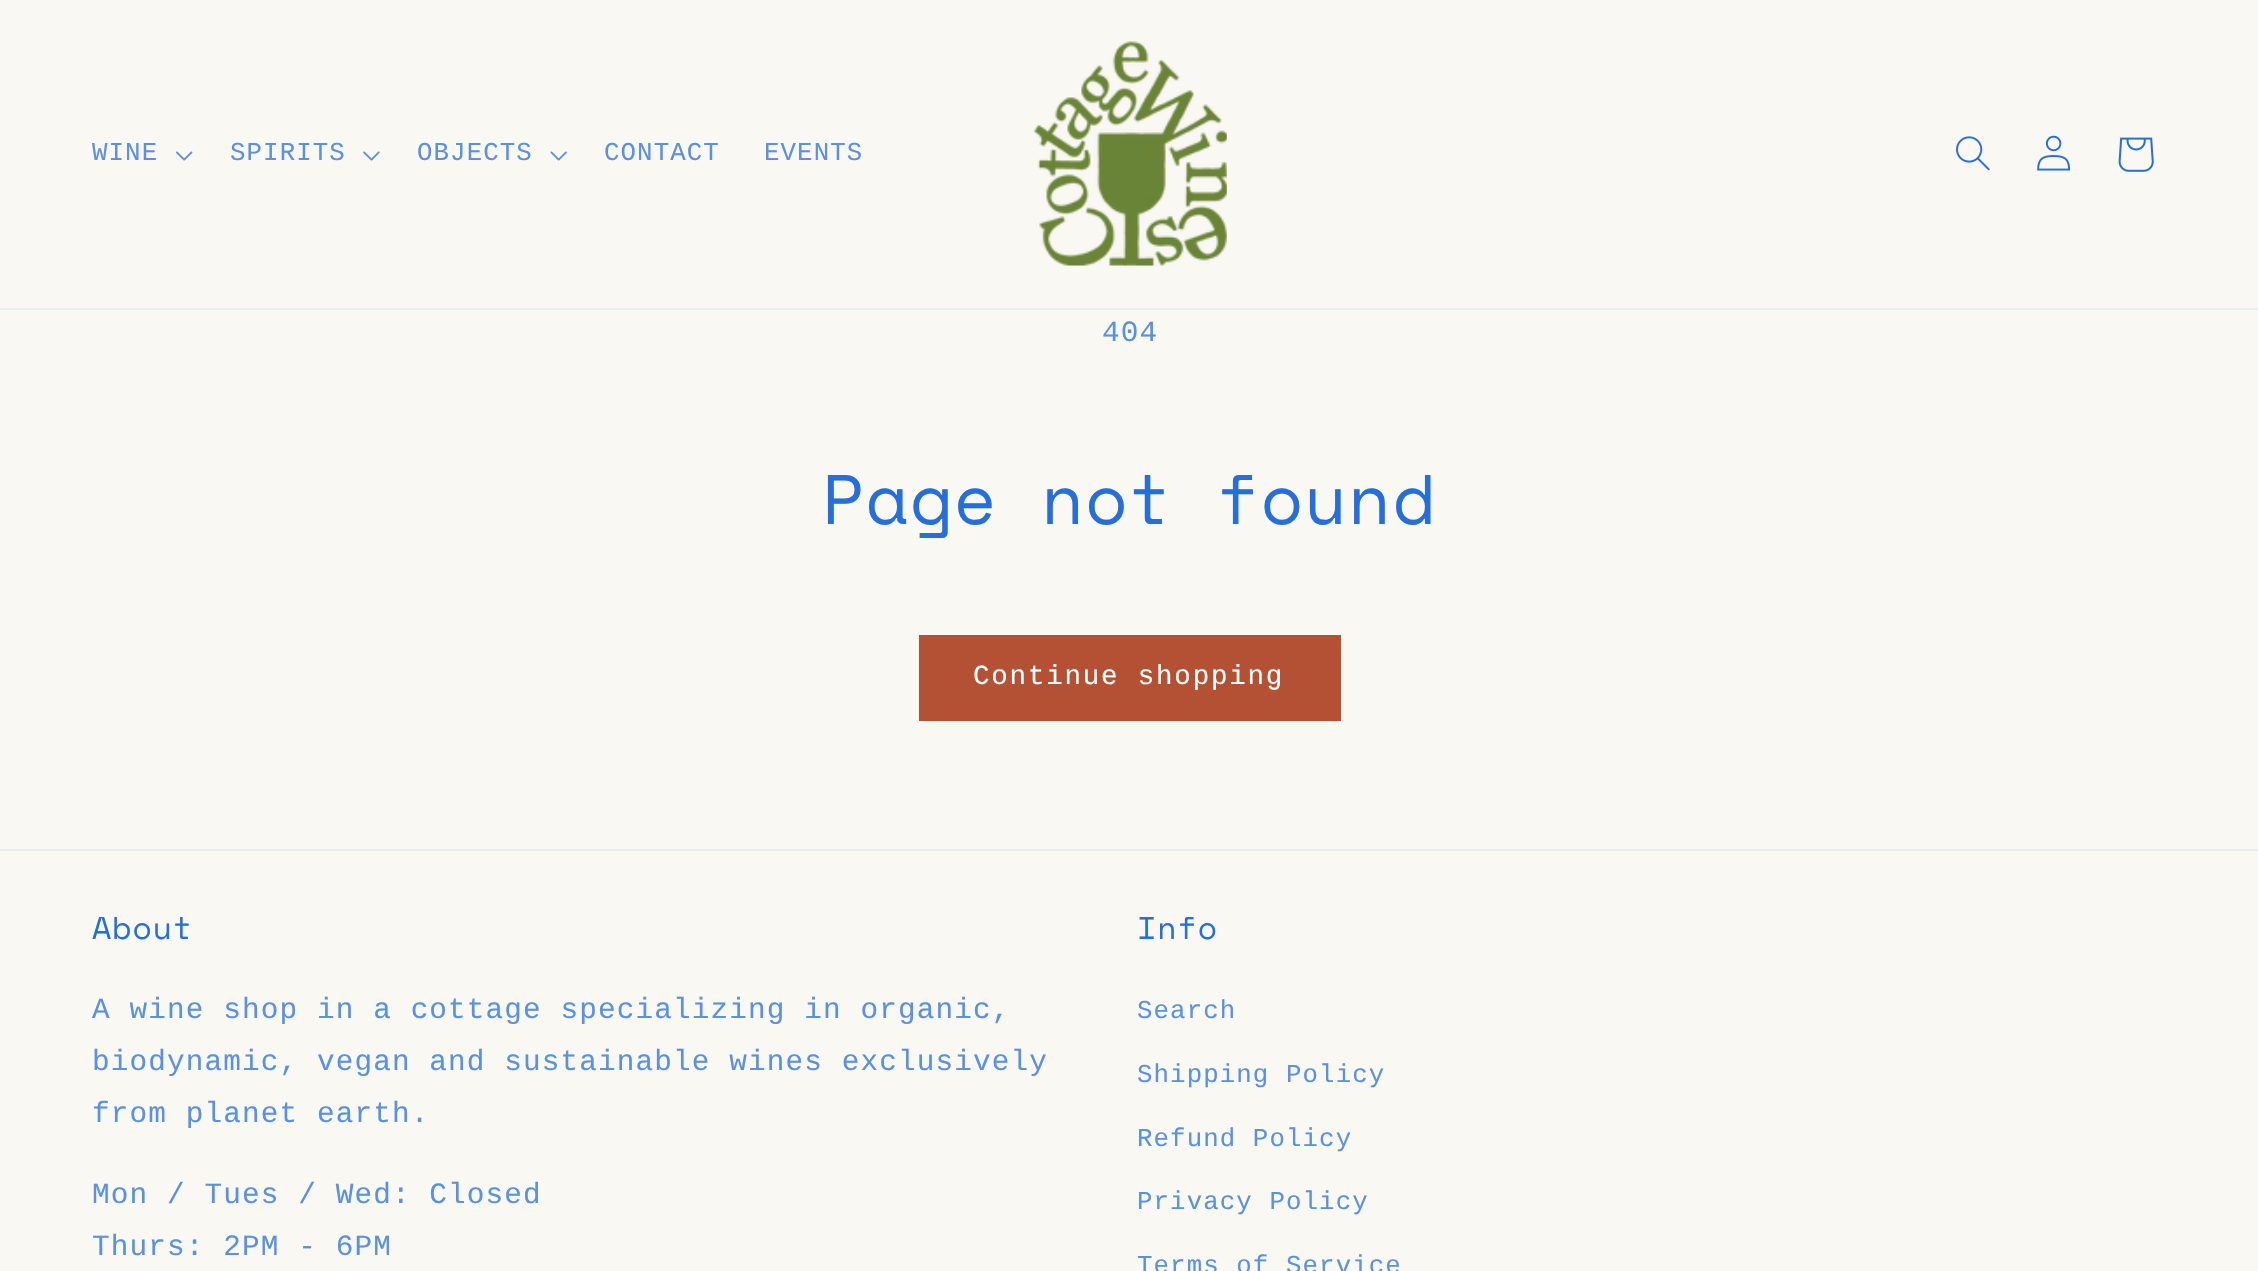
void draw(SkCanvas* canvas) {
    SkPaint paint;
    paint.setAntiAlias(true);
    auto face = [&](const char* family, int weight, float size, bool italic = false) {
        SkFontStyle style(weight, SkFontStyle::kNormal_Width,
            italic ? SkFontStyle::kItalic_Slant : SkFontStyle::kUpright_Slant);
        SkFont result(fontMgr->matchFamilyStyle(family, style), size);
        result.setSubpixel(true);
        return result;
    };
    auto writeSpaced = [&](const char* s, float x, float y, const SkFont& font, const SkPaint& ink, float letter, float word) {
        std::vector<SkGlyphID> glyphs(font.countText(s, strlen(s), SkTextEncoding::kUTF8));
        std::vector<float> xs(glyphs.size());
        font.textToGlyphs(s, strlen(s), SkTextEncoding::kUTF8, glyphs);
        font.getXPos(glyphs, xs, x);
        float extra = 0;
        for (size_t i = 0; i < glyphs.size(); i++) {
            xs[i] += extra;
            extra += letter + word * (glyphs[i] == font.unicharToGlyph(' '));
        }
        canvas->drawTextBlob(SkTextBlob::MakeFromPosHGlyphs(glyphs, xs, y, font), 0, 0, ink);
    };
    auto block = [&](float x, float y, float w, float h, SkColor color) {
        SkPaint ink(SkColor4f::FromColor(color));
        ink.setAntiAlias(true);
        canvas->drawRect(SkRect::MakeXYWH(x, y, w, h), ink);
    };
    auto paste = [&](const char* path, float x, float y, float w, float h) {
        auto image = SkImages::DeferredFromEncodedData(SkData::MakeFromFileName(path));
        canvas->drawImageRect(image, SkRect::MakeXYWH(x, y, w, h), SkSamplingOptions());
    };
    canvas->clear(SkColorSetRGB(249, 248, 243));
    block(0, 308, 2258, 2, SkColorSetRGB(232, 237, 241));
    auto kFont1 = face("Liberation Mono", 400, 25.75f);
    paint.setColor(SkColorSetRGB(90, 145, 225));
    writeSpaced("WINE", 92, 160, kFont1, paint, 1.1f, 0);
    paste("pic1.png", 176, 151, 17, 10);
    writeSpaced("SPIRITS", 230, 160, kFont1, paint, 1.1f, 0);
    paste("pic2.png", 363, 151, 17, 10);
    writeSpaced("OBJECTS", 417, 160, kFont1, paint, 1.1f, 0);
    paste("pic3.png", 550, 151, 17, 10);
    writeSpaced("CONTACT", 604, 160, kFont1, paint, 1.1f, 0);
    writeSpaced("EVENTS", 764, 160, kFont1, paint, 1.1f, 0);
    paste("pic4.png", 1033, 41, 194, 225);
    paste("pic5.png", 1956, 136, 34, 35);
    paste("pic6.png", 2037, 135, 34, 36);
    paste("pic7.png", 2118, 137, 36, 35);
    auto kFont2 = face("Liberation Mono", 400, 29.4f);
    writeSpaced("404", 1102, 341, kFont2, paint, 1.1f, 0);
    auto kFont3 = face("Space Mono", 400, 70);
    paint.setColor(SkColorSetRGB(37, 110, 219));
    writeSpaced("Page not found", 822, 524, kFont3, paint, 1, 0);
    block(919, 635, 422, 86, SkColorSetRGB(180, 80, 51));
    auto kFont4 = face("Liberation Mono", 400, 27.5f);
    paint.setColor(SK_ColorWHITE);
    writeSpaced("Continue shopping", 973, 684, kFont4, paint, 1.8f, 0);
    block(0, 849, 2258, 2, SkColorSetRGB(232, 237, 241));
    auto kFont5 = face("Space Mono", 400, 31.5f);
    paint.setColor(SkColorSetRGB(37, 110, 219));
    writeSpaced("About", 92, 939, kFont5, paint, 1, 0);
    paint.setColor(SkColorSetRGB(90, 145, 225));
    writeSpaced("A wine shop in a cottage specializing in organic,", 92, 1018, kFont2, paint, 1.1f, 0);
    writeSpaced("biodynamic, vegan and sustainable wines exclusively", 92, 1070, kFont2, paint, 1.1f, 0);
    writeSpaced("from planet earth.", 92, 1122, kFont2, paint, 1.1f, 0);
    writeSpaced("Mon / Tues / Wed: Closed", 92, 1203, kFont2, paint, 1.1f, 0);
    writeSpaced("Thurs: 2PM - 6PM", 92, 1255, kFont2, paint, 1.1f, 0);
    paint.setColor(SkColorSetRGB(37, 110, 219));
    writeSpaced("Info", 1137, 939, kFont5, paint, 1, 0);
    paint.setColor(SkColorSetRGB(90, 145, 225));
    writeSpaced("Search", 1137, 1018, kFont1, paint, 1.1f, 0);
    writeSpaced("Shipping Policy", 1137, 1082, kFont1, paint, 1.1f, 0);
    writeSpaced("Refund Policy", 1137, 1146, kFont1, paint, 1.1f, 0);
    writeSpaced("Privacy Policy", 1137, 1209, kFont1, paint, 1.1f, 0);
    writeSpaced("Terms of Service", 1137, 1273, kFont1, paint, 1.1f, 0);
}
